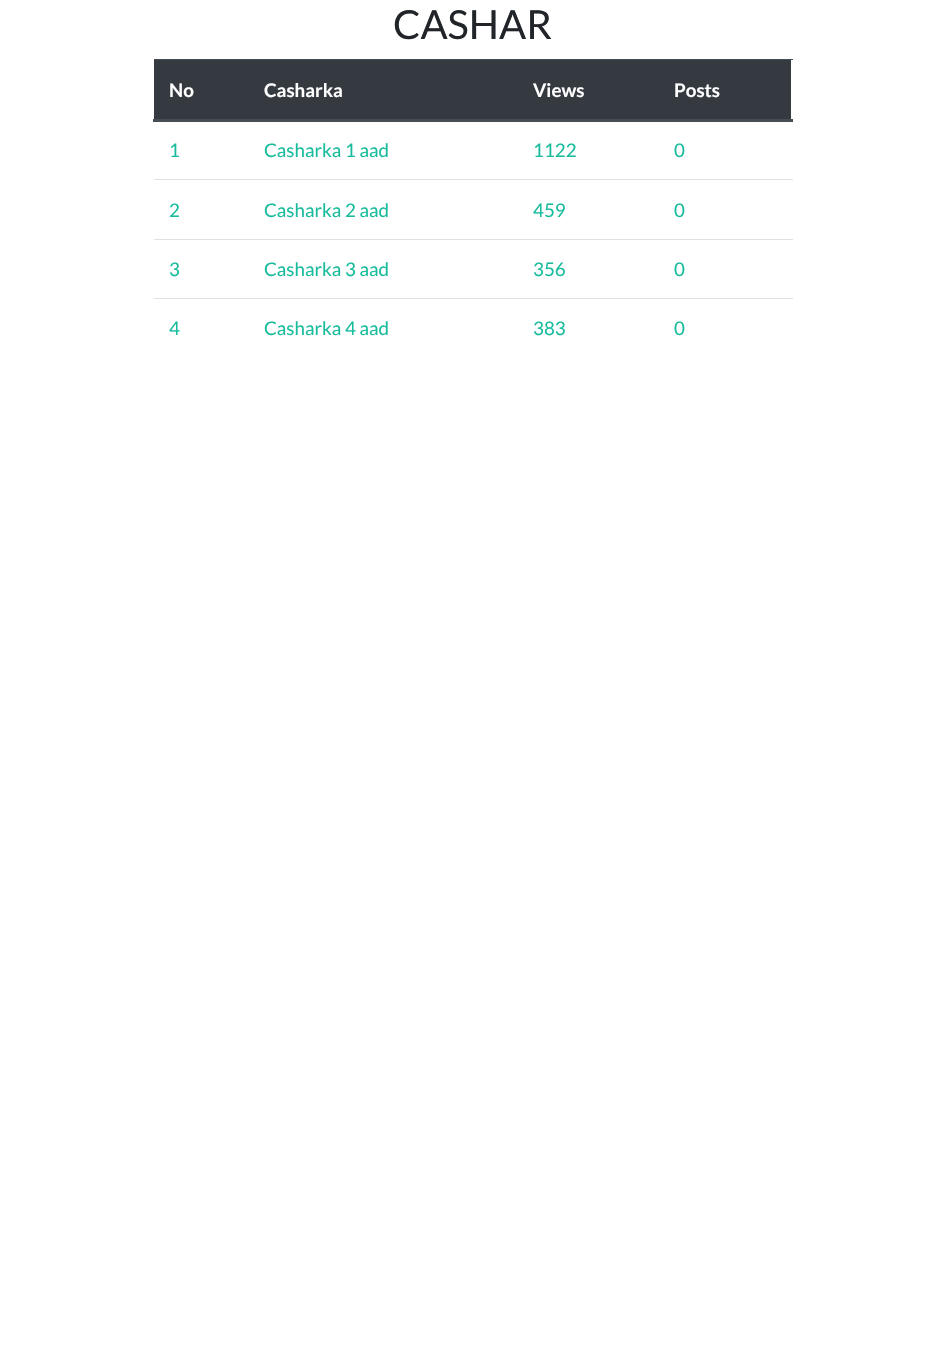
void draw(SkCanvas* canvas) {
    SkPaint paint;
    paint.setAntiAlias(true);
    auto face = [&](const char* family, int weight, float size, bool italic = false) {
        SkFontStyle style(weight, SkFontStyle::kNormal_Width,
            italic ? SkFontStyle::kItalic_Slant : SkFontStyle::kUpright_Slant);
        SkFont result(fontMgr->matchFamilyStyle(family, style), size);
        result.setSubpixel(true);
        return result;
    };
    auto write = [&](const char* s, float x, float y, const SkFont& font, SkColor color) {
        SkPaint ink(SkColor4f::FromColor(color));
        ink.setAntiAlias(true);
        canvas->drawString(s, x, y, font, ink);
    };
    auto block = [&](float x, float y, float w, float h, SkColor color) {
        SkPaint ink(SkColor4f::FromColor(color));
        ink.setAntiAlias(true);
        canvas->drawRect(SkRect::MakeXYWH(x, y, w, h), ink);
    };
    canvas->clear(SK_ColorWHITE);
    auto kFont1 = face("Lato", 400, 40);
    write("CASHAR", 393, 39, kFont1, SkColorSetRGB(33, 37, 41));
    block(154, 60, 637, 59, SkColorSetRGB(52, 58, 64));
    auto kFont2 = face("Lato", 700, 18.75f);
    write("No", 169, 97, kFont2, SK_ColorWHITE);
    write("Casharka", 264, 97, kFont2, SK_ColorWHITE);
    write("Views", 533, 97, kFont2, SK_ColorWHITE);
    block(154, 59, 639, 1, SkColorSetRGB(69, 77, 85));
    block(153, 119, 640, 3, SkColorSetRGB(69, 77, 85));
    write("Posts", 674, 97, kFont2, SK_ColorWHITE);
    auto kFont3 = face("Lato", 400, 18.75f);
    write("1", 169, 157, kFont3, SkColorSetRGB(24, 188, 156));
    write("Casharka 1 aad", 264, 157, kFont3, SkColorSetRGB(24, 188, 156));
    write("1122", 533, 157, kFont3, SkColorSetRGB(24, 188, 156));
    write("0", 674, 157, kFont3, SkColorSetRGB(24, 188, 156));
    write("2", 169, 217, kFont3, SkColorSetRGB(24, 188, 156));
    write("Casharka 2 aad", 264, 217, kFont3, SkColorSetRGB(24, 188, 156));
    write("459", 533, 217, kFont3, SkColorSetRGB(24, 188, 156));
    block(154, 179, 639, 1, SkColorSetRGB(222, 226, 230));
    write("0", 674, 217, kFont3, SkColorSetRGB(24, 188, 156));
    write("3", 169, 276, kFont3, SkColorSetRGB(24, 188, 156));
    write("Casharka 3 aad", 264, 276, kFont3, SkColorSetRGB(24, 188, 156));
    write("356", 533, 276, kFont3, SkColorSetRGB(24, 188, 156));
    block(154, 239, 639, 1, SkColorSetRGB(222, 226, 230));
    write("0", 674, 276, kFont3, SkColorSetRGB(24, 188, 156));
    write("4", 169, 335, kFont3, SkColorSetRGB(24, 188, 156));
    write("Casharka 4 aad", 264, 335, kFont3, SkColorSetRGB(24, 188, 156));
    write("383", 533, 335, kFont3, SkColorSetRGB(24, 188, 156));
    block(154, 298, 639, 1, SkColorSetRGB(222, 226, 230));
    write("0", 674, 335, kFont3, SkColorSetRGB(24, 188, 156));
}
